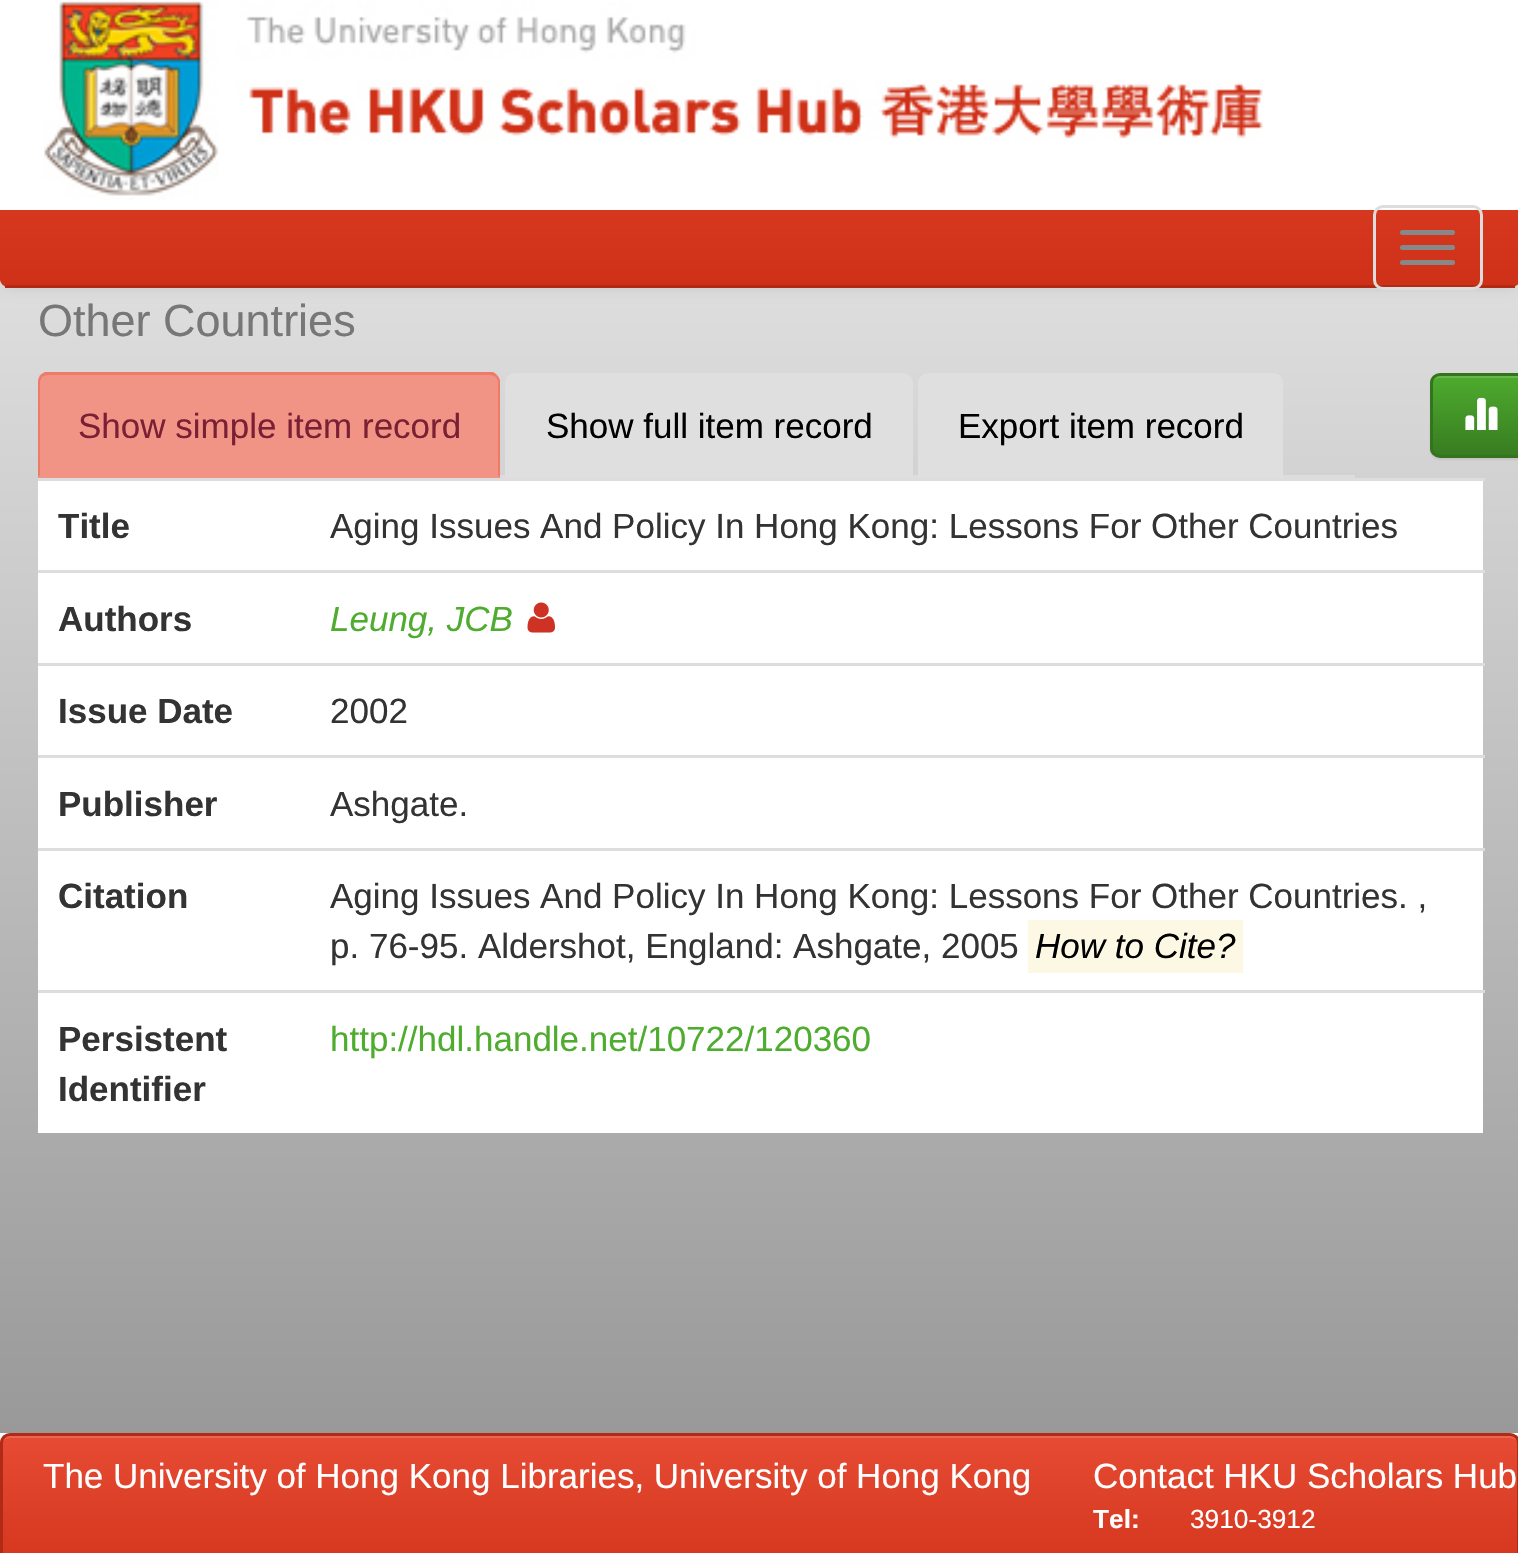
void draw(SkCanvas* canvas) {
    SkPaint paint;
    paint.setAntiAlias(true);
    auto face = [&](const char* family, int weight, float size, bool italic = false) {
        SkFontStyle style(weight, SkFontStyle::kNormal_Width,
            italic ? SkFontStyle::kItalic_Slant : SkFontStyle::kUpright_Slant);
        SkFont result(fontMgr->matchFamilyStyle(family, style), size);
        result.setSubpixel(true);
        return result;
    };
    auto write = [&](const char* s, float x, float y, const SkFont& font, SkColor color) {
        SkPaint ink(SkColor4f::FromColor(color));
        ink.setAntiAlias(true);
        canvas->drawString(s, x, y, font, ink);
    };
    auto block = [&](float x, float y, float w, float h, SkColor color) {
        SkPaint ink(SkColor4f::FromColor(color));
        ink.setAntiAlias(true);
        canvas->drawRect(SkRect::MakeXYWH(x, y, w, h), ink);
    };
    auto card = [&](float x, float y, float w, float h, float radius, SkColor color) {
        SkPaint ink(SkColor4f::FromColor(color));
        ink.setAntiAlias(true);
        canvas->drawRoundRect(SkRect::MakeXYWH(x, y, w, h), radius, radius, ink);
    };
    auto paste = [&](const char* path, float x, float y, float w, float h) {
        auto image = SkImages::DeferredFromEncodedData(SkData::MakeFromFileName(path));
        canvas->drawImageRect(image, SkRect::MakeXYWH(x, y, w, h), SkSamplingOptions());
    };
    canvas->clear(SK_ColorWHITE);
    {
        const SkColor colors[] = {SK_ColorWHITE, SkColorSetRGB(153, 153, 153)};
        const float stops[] = {0, 1};
        const SkPoint ends[] = {{760, -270}, {760, 1433}};
        paint.setShader(SkGradientShader::MakeLinear(ends, colors, stops, 2, SkTileMode::kClamp));
        paint.setAlpha(255);
    }
    canvas->drawRect(SkRect::MakeXYWH(0, 278, 1518, 1155), paint);
    paint.setShader(nullptr);
    paint.setColor(SkColorSetARGB(18, 0, 0, 0));
    paint.setMaskFilter(SkMaskFilter::MakeBlur(kNormal_SkBlurStyle, 6));
    canvas->drawRoundRect(SkRect::MakeXYWH(0, 3, 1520, 287), 10, 10, paint);
    paint.setMaskFilter(nullptr);
    card(0, 0, 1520, 288, 10, SkColorSetRGB(207, 49, 24));
    canvas->save();
    canvas->clipPath(SkPathBuilder().moveTo(10, 0).lineTo(1510, 0).cubicTo(1515.5f, 0, 1520, 4.5f, 1520, 10).lineTo(1520, 278).cubicTo(1520, 283.5f, 1515.5f, 288, 1510, 288).lineTo(10, 288).cubicTo(4.5f, 288, 0, 283.5f, 0, 278).lineTo(0, 10).cubicTo(0, 4.5f, 4.5f, 0, 10, 0).close().detach(), true);
    {
        const SkColor colors[] = {SkColorSetRGB(231, 75, 51), SkColorSetRGB(207, 49, 24)};
        const float stops[] = {0, 1};
        const SkPoint ends[] = {{760, 0}, {760, 285}};
        paint.setShader(SkGradientShader::MakeLinear(ends, colors, stops, 2, SkTileMode::kClamp));
        paint.setAlpha(255);
    }
    canvas->drawPath(SkPathBuilder().moveTo(10, 0).lineTo(1510, 0).cubicTo(1515.5f, 0, 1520, 4.5f, 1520, 10).lineTo(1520, 285).lineTo(0, 285).lineTo(0, 10).cubicTo(0, 4.5f, 4.5f, 0, 10, 0).close().detach(), paint);
    canvas->restore();
    block(5, 285, 1510, 3, SkColorSetRGB(177, 42, 21));
    block(0, 0, 1518, 210, SK_ColorWHITE);
    paste("pic1.png", 43, 1, 1220, 199);
    paint.setStyle(SkPaint::kStroke_Style);
    paint.setStrokeWidth(3);
    paint.setShader(nullptr);
    paint.setColor(SkColorSetRGB(221, 221, 221));
    canvas->drawRoundRect(SkRect::MakeXYWH(1374.5f, 206.5f, 107, 82), 8.5f, 8.5f, paint);
    card(1400, 230, 55, 5, 2.5f, SkColorSetRGB(136, 136, 136));
    card(1400, 245, 55, 5, 2.5f, SkColorSetRGB(136, 136, 136));
    card(1400, 260, 55, 5, 2.5f, SkColorSetRGB(136, 136, 136));
    auto kFont1 = face("Liberation Sans", 400, 45);
    write("Other Countries", 38, 336, kFont1, SkColorSetRGB(119, 119, 119));
    block(500, 475, 855, 3, SkColorSetRGB(221, 221, 221));
    paint.setStyle(SkPaint::kFill_Style);
    paint.setColor(SkColorSetRGB(241, 148, 133));
    canvas->drawPath(SkPathBuilder().moveTo(48, 373).lineTo(490, 373).cubicTo(495.5f, 373, 500, 377.5f, 500, 383).lineTo(500, 478).lineTo(38, 478).lineTo(38, 383).cubicTo(38, 377.5f, 42.5f, 373, 48, 373).close().detach(), paint);
    paint.setColor(SkColorSetRGB(238, 122, 103));
    canvas->drawPath(SkPathBuilder().moveTo(48, 375).cubicTo(45, 375, 43, 376, 42, 377).lineTo(40, 375).cubicTo(42, 374, 43, 373, 45, 372).lineTo(493, 372).cubicTo(495, 373, 496, 374, 497, 375).lineTo(496, 377).cubicTo(494, 376, 492, 375, 490, 375).close().detach(), paint);
    canvas->drawPath(SkPathBuilder().moveTo(500, 478).lineTo(500, 382).cubicTo(500, 380, 499, 377, 497, 375).lineTo(496, 377).lineTo(498, 381).lineTo(498, 475).close().detach(), paint);
    canvas->drawPath(SkPathBuilder().moveTo(38, 477).lineTo(38, 382).cubicTo(38, 380, 39, 377, 40, 375).lineTo(42, 377).lineTo(40, 381).lineTo(40, 475).close().detach(), paint);
    auto kFont2 = face("Liberation Sans", 400, 35);
    write("Show simple item record", 78, 438, kFont2, SkColorSetRGB(123, 32, 52));
    paint.setColor(SkColorSetRGB(223, 223, 223));
    canvas->drawPath(SkPathBuilder().moveTo(515, 373).lineTo(903, 373).cubicTo(908.5f, 373, 913, 377.5f, 913, 383).lineTo(913, 478).lineTo(505, 478).lineTo(505, 383).cubicTo(505, 377.5f, 509.5f, 373, 515, 373).close().detach(), paint);
    write("Show full item record", 546, 438, kFont2, SK_ColorBLACK);
    canvas->drawPath(SkPathBuilder().moveTo(928, 373).lineTo(1273, 373).cubicTo(1278.5f, 373, 1283, 377.5f, 1283, 383).lineTo(1283, 478).lineTo(918, 478).lineTo(918, 383).cubicTo(918, 377.5f, 922.5f, 373, 928, 373).close().detach(), paint);
    write("Export item record", 958, 438, kFont2, SK_ColorBLACK);
    paint.setColor(SkColorSetARGB(18, 0, 0, 0));
    paint.setMaskFilter(SkMaskFilter::MakeBlur(kNormal_SkBlurStyle, 1));
    canvas->drawRoundRect(SkRect::MakeXYWH(1430, 375, 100, 85), 10, 10, paint);
    paint.setMaskFilter(nullptr);
    canvas->save();
    canvas->clipPath(SkPathBuilder().moveTo(1440, 373).lineTo(1520, 373).cubicTo(1525.5f, 373, 1530, 377.5f, 1530, 383).lineTo(1530, 448).cubicTo(1530, 453.5f, 1525.5f, 458, 1520, 458).lineTo(1440, 458).cubicTo(1434.5f, 458, 1430, 453.5f, 1430, 448).lineTo(1430, 383).cubicTo(1430, 377.5f, 1434.5f, 373, 1440, 373).close().detach(), true);
    {
        const SkColor colors[] = {SkColorSetRGB(78, 172, 46), SkColorSetRGB(56, 124, 33)};
        const float stops[] = {0, 1};
        const SkPoint ends[] = {{1480, 375}, {1480, 455}};
        paint.setShader(SkGradientShader::MakeLinear(ends, colors, stops, 2, SkTileMode::kClamp));
        paint.setAlpha(255);
    }
    canvas->drawRect(SkRect::MakeXYWH(1430, 375, 88, 80), paint);
    canvas->restore();
    paint.setShader(nullptr);
    paint.setColor(SkColorSetARGB(38, 255, 255, 255));
    canvas->drawPath(SkPathBuilder().moveTo(1440, 378).lineTo(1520, 378).cubicTo(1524, 378, 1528, 381, 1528, 385).lineTo(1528, 383).cubicTo(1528, 379, 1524, 375, 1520, 375).lineTo(1441, 375).cubicTo(1437, 375, 1434, 378, 1433, 381).cubicTo(1435, 379, 1437, 378, 1440, 378).close().detach(), paint);
    paint.setStyle(SkPaint::kStroke_Style);
    paint.setColor(SkColorSetRGB(52, 116, 31));
    canvas->drawRoundRect(SkRect::MakeXYWH(1431.5f, 374.5f, 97, 82), 8.5f, 8.5f, paint);
    paste("pic2.png", 1465, 397, 33, 33);
    block(38, 481, 1445, 652, SK_ColorWHITE);
    auto kFont3 = face("Liberation Sans", 700, 35);
    write("Title", 58, 538, kFont3, SkColorSetRGB(51, 51, 51));
    block(38, 478, 1447, 3, SkColorSetRGB(221, 221, 221));
    write("Aging Issues And Policy In Hong Kong: Lessons For Other Countries", 330, 538, kFont2, SkColorSetRGB(51, 51, 51));
    write("Authors", 58, 631, kFont3, SkColorSetRGB(51, 51, 51));
    block(38, 570, 1447, 3, SkColorSetRGB(221, 221, 221));
    auto kFont4 = face("Liberation Sans", 400, 35, true);
    write("Leung, JCB", 330, 631, kFont4, SkColorSetRGB(78, 172, 46));
    paste("pic3.png", 527, 602, 28, 31);
    write("Issue Date", 58, 723, kFont3, SkColorSetRGB(51, 51, 51));
    block(38, 663, 1447, 3, SkColorSetRGB(221, 221, 221));
    write("2002", 330, 723, kFont2, SkColorSetRGB(51, 51, 51));
    write("Publisher", 58, 816, kFont3, SkColorSetRGB(51, 51, 51));
    block(38, 755, 1447, 3, SkColorSetRGB(221, 221, 221));
    write("Ashgate.", 330, 816, kFont2, SkColorSetRGB(51, 51, 51));
    write("Citation", 58, 908, kFont3, SkColorSetRGB(51, 51, 51));
    block(38, 848, 1447, 3, SkColorSetRGB(221, 221, 221));
    write("Aging Issues And Policy In Hong Kong: Lessons For Other Countries. ,", 330, 908, kFont2, SkColorSetRGB(51, 51, 51));
    write("p. 76-95. Aldershot, England: Ashgate, 2005", 330, 958, kFont2, SkColorSetRGB(51, 51, 51));
    block(1028, 920, 215, 53, SkColorSetRGB(252, 248, 227));
    write("How to Cite?", 1035, 958, kFont4, SK_ColorBLACK);
    write("Persistent", 58, 1051, kFont3, SkColorSetRGB(51, 51, 51));
    write("Identifier", 58, 1101, kFont3, SkColorSetRGB(51, 51, 51));
    block(38, 990, 1447, 3, SkColorSetRGB(221, 221, 221));
    write("http://hdl.handle.net/10722/120360", 330, 1051, kFont2, SkColorSetRGB(78, 172, 46));
    canvas->save();
    canvas->clipPath(SkPathBuilder().moveTo(10, 1433).lineTo(1510, 1433).cubicTo(1515.5f, 1433, 1520, 1437.5f, 1520, 1443).lineTo(1520, 1593).cubicTo(1520, 1598.5f, 1515.5f, 1603, 1510, 1603).lineTo(10, 1603).cubicTo(4.5f, 1603, 0, 1598.5f, 0, 1593).lineTo(0, 1443).cubicTo(0, 1437.5f, 4.5f, 1433, 10, 1433).close().detach(), true);
    paint.setStyle(SkPaint::kFill_Style);
    {
        const SkColor colors[] = {SkColorSetRGB(231, 75, 51), SkColorSetRGB(207, 49, 24)};
        const float stops[] = {0, 1};
        const SkPoint ends[] = {{760, 1435}, {760, 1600}};
        paint.setShader(SkGradientShader::MakeLinear(ends, colors, stops, 2, SkTileMode::kClamp));
        paint.setAlpha(255);
    }
    canvas->drawRect(SkRect::MakeXYWH(0, 1435, 1518, 118), paint);
    canvas->restore();
    paint.setShader(nullptr);
    paint.setColor(SkColorSetRGB(235, 102, 82));
    canvas->drawPath(SkPathBuilder().moveTo(10, 1438).lineTo(1510, 1438).cubicTo(1514, 1438, 1518, 1441, 1518, 1445).lineTo(1518, 1443).cubicTo(1518, 1439, 1514, 1435, 1510, 1435).lineTo(11, 1435).cubicTo(7, 1435, 4, 1438, 3, 1441).cubicTo(5, 1439, 7, 1438, 10, 1438).close().detach(), paint);
    paint.setStyle(SkPaint::kStroke_Style);
    paint.setColor(SkColorSetRGB(177, 42, 21));
    canvas->drawRoundRect(SkRect::MakeXYWH(1.5f, 1434.5f, 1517, 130), 8.5f, 8.5f, paint);
    write("The University of Hong Kong Libraries, University of Hong Kong", 43, 1488, kFont2, SK_ColorWHITE);
    write("Contact HKU Scholars Hub", 1093, 1488, kFont2, SK_ColorWHITE);
    auto kFont5 = face("Liberation Sans", 700, 26.25f);
    write("Tel:", 1093, 1528, kFont5, SK_ColorWHITE);
    auto kFont6 = face("Liberation Sans", 400, 26.25f);
    write("3910-3912", 1190, 1528, kFont6, SK_ColorWHITE);
}
